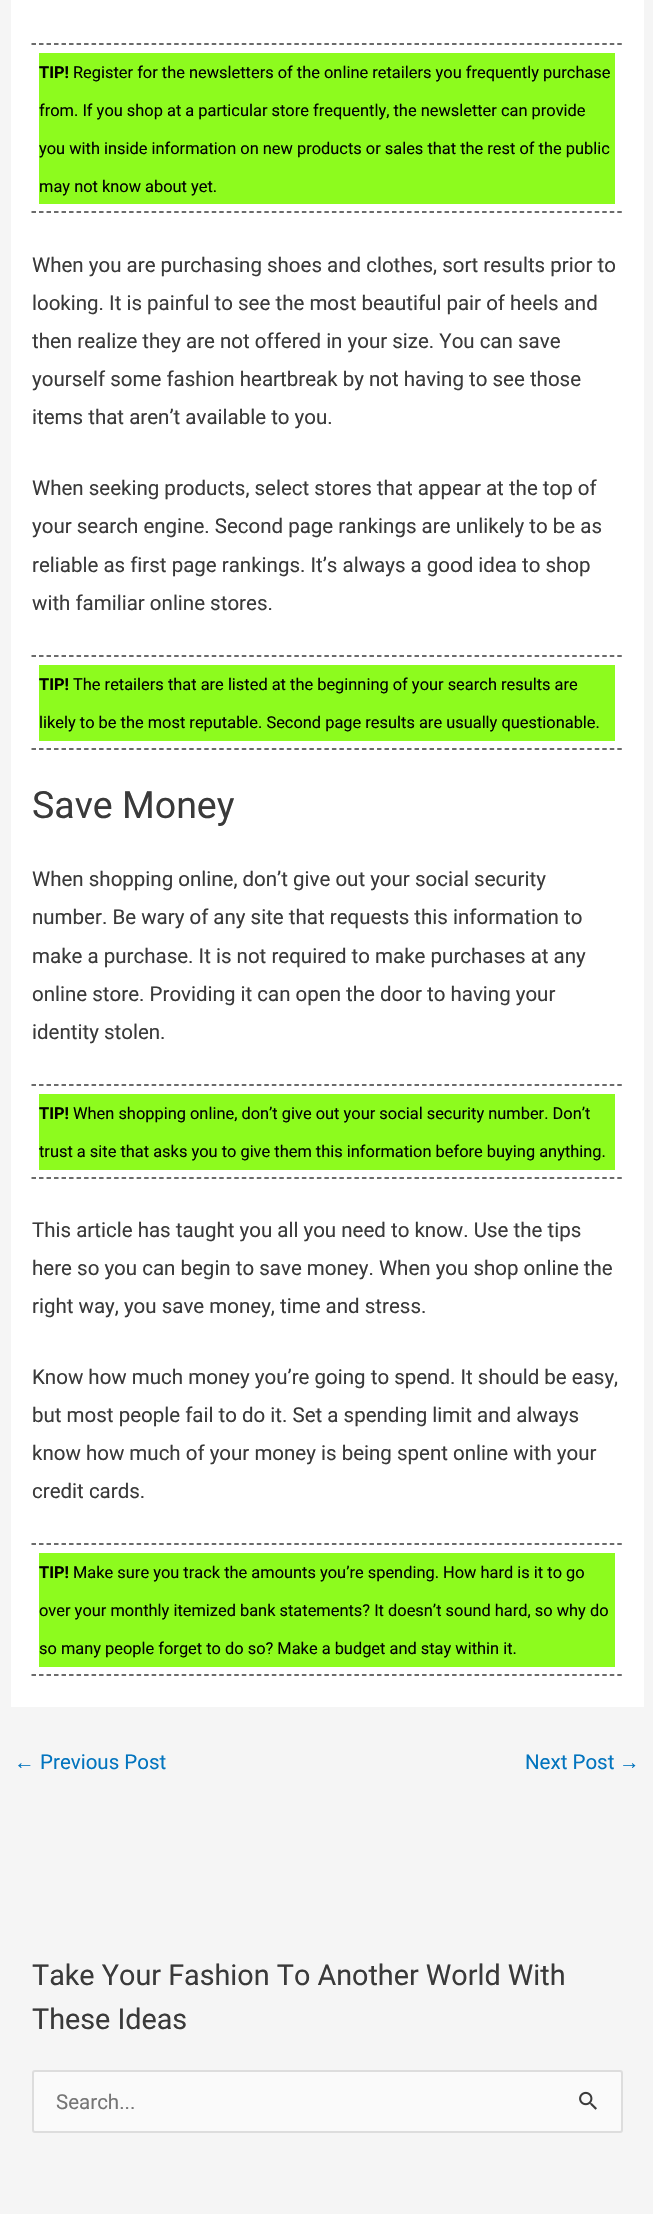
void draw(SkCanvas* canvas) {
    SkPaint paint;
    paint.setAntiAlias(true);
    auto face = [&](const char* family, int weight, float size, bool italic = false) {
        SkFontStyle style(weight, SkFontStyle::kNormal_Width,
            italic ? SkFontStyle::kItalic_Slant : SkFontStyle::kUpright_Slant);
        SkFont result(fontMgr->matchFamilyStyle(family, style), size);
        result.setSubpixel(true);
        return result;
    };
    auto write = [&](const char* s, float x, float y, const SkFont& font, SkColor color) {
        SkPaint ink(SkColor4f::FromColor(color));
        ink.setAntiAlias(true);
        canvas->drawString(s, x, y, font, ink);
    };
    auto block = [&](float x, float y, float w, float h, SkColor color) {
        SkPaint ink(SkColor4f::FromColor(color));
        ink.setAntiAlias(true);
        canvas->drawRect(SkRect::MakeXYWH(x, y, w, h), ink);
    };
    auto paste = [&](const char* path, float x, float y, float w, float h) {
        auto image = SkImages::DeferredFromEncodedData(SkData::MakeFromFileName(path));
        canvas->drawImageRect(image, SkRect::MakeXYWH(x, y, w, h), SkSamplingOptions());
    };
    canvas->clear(SkColorSetRGB(245, 245, 245));
    block(11, 0, 633, 1707, SK_ColorWHITE);
    paint.setStyle(SkPaint::kStroke_Style);
    paint.setStrokeWidth(1.5f);
    paint.setColor(SkColorSetRGB(58, 58, 58));
    paint.setPathEffect(SkDashPathEffect::Make({{4.5f, 3.01f}}, 0));
    canvas->drawPath(SkPathBuilder().moveTo(31.5f, 44).lineTo(622.5f, 44).detach(), paint);
    paint.setPathEffect(nullptr);
    paint.setPathEffect(SkDashPathEffect::Make({{4.5f, 3.01f}}, 0));
    canvas->drawPath(SkPathBuilder().moveTo(31.5f, 212).lineTo(622.5f, 212).detach(), paint);
    paint.setPathEffect(nullptr);
    block(39, 53, 576, 151, SkColorSetRGB(141, 251, 30));
    auto kFont1 = face("Roboto", 700, 16.4f);
    write("TIP!", 39, 78, kFont1, SkColorSetRGB(1, 1, 1));
    auto kFont2 = face("Roboto", 400, 16.4f);
    write("Register for the newsletters of the online retailers you frequently purchase", 73, 78, kFont2, SkColorSetRGB(1, 1, 1));
    write("from. If you shop at a particular store frequently, the newsletter can provide", 39, 116, kFont2, SkColorSetRGB(1, 1, 1));
    write("you with inside information on new products or sales that the rest of the public", 39, 154, kFont2, SkColorSetRGB(1, 1, 1));
    write("may not know about yet.", 39, 192, kFont2, SkColorSetRGB(1, 1, 1));
    auto kFont3 = face("Roboto", 400, 20.5f);
    write("When you are purchasing shoes and clothes, sort results prior to", 32, 272, kFont3, SkColorSetRGB(58, 58, 58));
    write("looking. It is painful to see the most beautiful pair of heels and", 32, 310, kFont3, SkColorSetRGB(58, 58, 58));
    write("then realize they are not offered in your size. You can save", 32, 348, kFont3, SkColorSetRGB(58, 58, 58));
    write("yourself some fashion heartbreak by not having to see those", 32, 386, kFont3, SkColorSetRGB(58, 58, 58));
    write("items that aren’t available to you.", 32, 424, kFont3, SkColorSetRGB(58, 58, 58));
    write("When seeking products, select stores that appear at the top of", 32, 495, kFont3, SkColorSetRGB(58, 58, 58));
    write("your search engine. Second page rankings are unlikely to be as", 32, 533, kFont3, SkColorSetRGB(58, 58, 58));
    write("reliable as first page rankings. It’s always a good idea to shop", 32, 572, kFont3, SkColorSetRGB(58, 58, 58));
    write("with familiar online stores.", 32, 610, kFont3, SkColorSetRGB(58, 58, 58));
    paint.setPathEffect(SkDashPathEffect::Make({{4.5f, 3.01f}}, 0));
    canvas->drawPath(SkPathBuilder().moveTo(31.5f, 656).lineTo(622.5f, 656).detach(), paint);
    paint.setPathEffect(nullptr);
    paint.setPathEffect(SkDashPathEffect::Make({{4.5f, 3.01f}}, 0));
    canvas->drawPath(SkPathBuilder().moveTo(31.5f, 749).lineTo(622.5f, 749).detach(), paint);
    paint.setPathEffect(nullptr);
    block(39, 665, 576, 76, SkColorSetRGB(141, 251, 30));
    write("TIP!", 39, 690, kFont1, SkColorSetRGB(1, 1, 1));
    write("The retailers that are listed at the beginning of your search results are", 73, 690, kFont2, SkColorSetRGB(1, 1, 1));
    write("likely to be the most reputable. Second page results are usually questionable.", 39, 728, kFont2, SkColorSetRGB(1, 1, 1));
    auto kFont4 = face("Roboto", 400, 37.5f);
    write("Save Money", 32, 818, kFont4, SkColorSetRGB(58, 58, 58));
    write("When shopping online, don’t give out your social security", 32, 886, kFont3, SkColorSetRGB(58, 58, 58));
    write("number. Be wary of any site that requests this information to", 32, 924, kFont3, SkColorSetRGB(58, 58, 58));
    write("make a purchase. It is not required to make purchases at any", 32, 963, kFont3, SkColorSetRGB(58, 58, 58));
    write("online store. Providing it can open the door to having your", 32, 1001, kFont3, SkColorSetRGB(58, 58, 58));
    write("identity stolen.", 32, 1039, kFont3, SkColorSetRGB(58, 58, 58));
    paint.setPathEffect(SkDashPathEffect::Make({{4.5f, 3.01f}}, 0));
    canvas->drawPath(SkPathBuilder().moveTo(31.5f, 1085).lineTo(622.5f, 1085).detach(), paint);
    paint.setPathEffect(nullptr);
    paint.setPathEffect(SkDashPathEffect::Make({{4.5f, 3.01f}}, 0));
    canvas->drawPath(SkPathBuilder().moveTo(31.5f, 1178).lineTo(622.5f, 1178).detach(), paint);
    paint.setPathEffect(nullptr);
    block(39, 1094, 576, 76, SkColorSetRGB(141, 251, 30));
    write("TIP!", 39, 1119, kFont1, SkColorSetRGB(1, 1, 1));
    write("When shopping online, don’t give out your social security number. Don’t", 73, 1119, kFont2, SkColorSetRGB(1, 1, 1));
    write("trust a site that asks you to give them this information before buying anything.", 39, 1157, kFont2, SkColorSetRGB(1, 1, 1));
    write("This article has taught you all you need to know. Use the tips", 32, 1237, kFont3, SkColorSetRGB(58, 58, 58));
    write("here so you can begin to save money. When you shop online the", 32, 1275, kFont3, SkColorSetRGB(58, 58, 58));
    write("right way, you save money, time and stress.", 32, 1313, kFont3, SkColorSetRGB(58, 58, 58));
    write("Know how much money you’re going to spend. It should be easy,", 32, 1384, kFont3, SkColorSetRGB(58, 58, 58));
    write("but most people fail to do it. Set a spending limit and always", 32, 1422, kFont3, SkColorSetRGB(58, 58, 58));
    write("know how much of your money is being spent online with your", 32, 1460, kFont3, SkColorSetRGB(58, 58, 58));
    write("credit cards.", 32, 1498, kFont3, SkColorSetRGB(58, 58, 58));
    paint.setPathEffect(SkDashPathEffect::Make({{4.5f, 3.01f}}, 0));
    canvas->drawPath(SkPathBuilder().moveTo(31.5f, 1544).lineTo(622.5f, 1544).detach(), paint);
    paint.setPathEffect(nullptr);
    paint.setPathEffect(SkDashPathEffect::Make({{4.5f, 3.01f}}, 0));
    canvas->drawPath(SkPathBuilder().moveTo(31.5f, 1675).lineTo(622.5f, 1675).detach(), paint);
    paint.setPathEffect(nullptr);
    block(39, 1553, 576, 114, SkColorSetRGB(141, 251, 30));
    write("TIP!", 39, 1578, kFont1, SkColorSetRGB(1, 1, 1));
    write("Make sure you track the amounts you’re spending. How hard is it to go", 73, 1578, kFont2, SkColorSetRGB(1, 1, 1));
    write("over your monthly itemized bank statements? It doesn’t sound hard, so why do", 39, 1616, kFont2, SkColorSetRGB(1, 1, 1));
    write("so many people forget to do so? Make a budget and stay within it.", 39, 1654, kFont2, SkColorSetRGB(1, 1, 1));
    auto kFont5 = face("Liberation Sans", 400, 20.5f);
    write("←", 14, 1769, kFont5, SkColorSetRGB(2, 116, 190));
    write("Previous Post", 40, 1769, kFont3, SkColorSetRGB(2, 116, 190));
    write("Next Post", 525, 1769, kFont3, SkColorSetRGB(2, 116, 190));
    write("→", 619, 1769, kFont5, SkColorSetRGB(2, 116, 190));
    auto kFont6 = face("Roboto", 400, 28.75f);
    write("Take Your Fashion To Another World With", 32, 1985, kFont6, SkColorSetRGB(58, 58, 58));
    write("These Ideas", 32, 2029, kFont6, SkColorSetRGB(58, 58, 58));
    paint.setStyle(SkPaint::kFill_Style);
    paint.setColor(SkColorSetRGB(250, 250, 250));
    canvas->drawRoundRect(SkRect::MakeXYWH(33, 2071, 589, 61), 2, 2, paint);
    paint.setStyle(SkPaint::kStroke_Style);
    paint.setStrokeWidth(2);
    paint.setColor(SkColorSetRGB(221, 221, 221));
    canvas->drawRoundRect(SkRect::MakeXYWH(33, 2071, 589, 61), 2, 2, paint);
    write("Search...", 56, 2109, kFont3, SkColorSetRGB(117, 117, 117));
    paste("pic1.png", 579, 2091, 18, 19);
}
